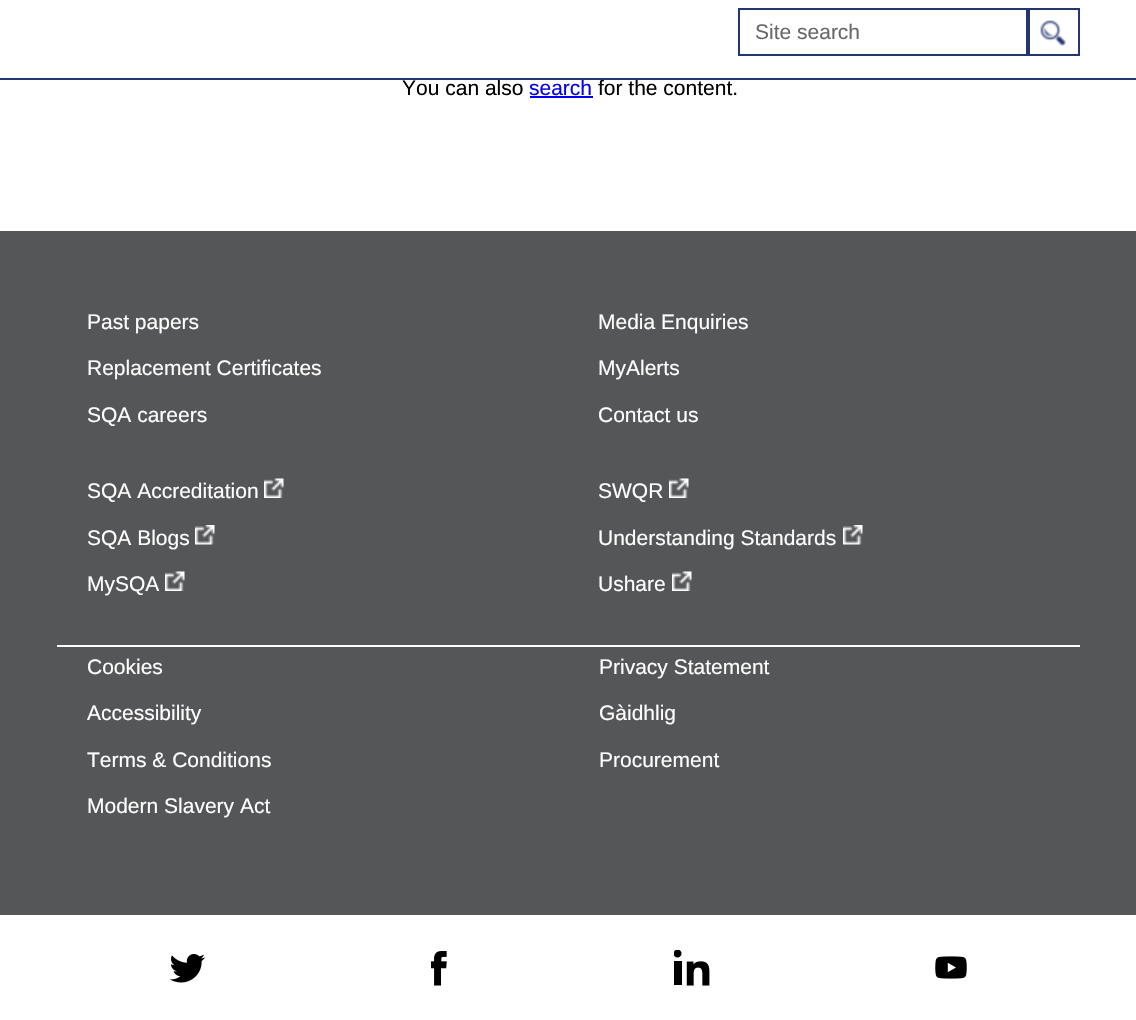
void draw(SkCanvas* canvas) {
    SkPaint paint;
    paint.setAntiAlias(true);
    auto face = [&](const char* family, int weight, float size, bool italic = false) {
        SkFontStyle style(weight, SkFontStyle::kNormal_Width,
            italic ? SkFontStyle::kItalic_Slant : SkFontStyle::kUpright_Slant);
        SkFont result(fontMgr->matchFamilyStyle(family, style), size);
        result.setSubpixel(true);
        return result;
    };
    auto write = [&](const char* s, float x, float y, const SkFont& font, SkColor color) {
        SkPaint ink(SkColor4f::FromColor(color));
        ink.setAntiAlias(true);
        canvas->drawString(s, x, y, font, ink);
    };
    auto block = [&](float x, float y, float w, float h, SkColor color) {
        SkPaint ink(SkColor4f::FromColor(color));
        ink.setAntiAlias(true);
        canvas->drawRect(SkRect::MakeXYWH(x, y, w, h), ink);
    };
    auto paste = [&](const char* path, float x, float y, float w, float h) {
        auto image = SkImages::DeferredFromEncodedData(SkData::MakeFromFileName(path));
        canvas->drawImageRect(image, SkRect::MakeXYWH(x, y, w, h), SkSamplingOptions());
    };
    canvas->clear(SK_ColorWHITE);
    auto kFont1 = face("Liberation Sans", 400, 21);
    write("You can also", 402, 95, kFont1, SK_ColorBLACK);
    write("search", 529, 95, kFont1, SkColorSetRGB(0, 0, 238));
    write("for the content.", 598, 95, kFont1, SK_ColorBLACK);
    block(0, 78, 1136, 2, SkColorSetRGB(36, 53, 114));
    paint.setStyle(SkPaint::kStroke_Style);
    paint.setStrokeWidth(2);
    paint.setColor(SkColorSetRGB(36, 53, 114));
    canvas->drawRect(SkRect::MakeXYWH(739, 9, 288, 46), paint);
    write("Site search", 755, 39, kFont1, SkColorSetRGB(105, 104, 104));
    paste("pic1.png", 1040, 20, 26, 26);
    canvas->drawRect(SkRect::MakeXYWH(1029, 9, 50, 46), paint);
    block(530, 96, 63, 2, SkColorSetRGB(0, 0, 238));
    block(0, 231, 1136, 684, SkColorSetRGB(85, 86, 88));
    block(57, 645, 1023, 2, SK_ColorWHITE);
    write("Past papers", 87, 329, kFont1, SK_ColorWHITE);
    write("Replacement Certificates", 87, 375, kFont1, SK_ColorWHITE);
    write("SQA careers", 87, 422, kFont1, SK_ColorWHITE);
    write("Media Enquiries", 598, 329, kFont1, SK_ColorWHITE);
    write("MyAlerts", 598, 375, kFont1, SK_ColorWHITE);
    write("Contact us", 598, 422, kFont1, SK_ColorWHITE);
    write("SQA Accreditation", 87, 498, kFont1, SK_ColorWHITE);
    paste("pic2.png", 264, 478, 20, 20);
    write("SQA Blogs", 87, 545, kFont1, SK_ColorWHITE);
    paste("pic3.png", 195, 525, 20, 20);
    write("MySQA", 87, 591, kFont1, SK_ColorWHITE);
    paste("pic4.png", 165, 571, 20, 20);
    write("SWQR", 598, 498, kFont1, SK_ColorWHITE);
    paste("pic4.png", 669, 478, 20, 20);
    write("Understanding Standards", 598, 545, kFont1, SK_ColorWHITE);
    paste("pic3.png", 843, 525, 20, 20);
    write("Ushare", 598, 591, kFont1, SK_ColorWHITE);
    paste("pic4.png", 672, 571, 20, 20);
    write("Cookies", 87, 674, kFont1, SK_ColorWHITE);
    write("Privacy Statement", 599, 674, kFont1, SK_ColorWHITE);
    write("Accessibility", 87, 720, kFont1, SK_ColorWHITE);
    write("Gàidhlig", 599, 720, kFont1, SK_ColorWHITE);
    write("Terms & Conditions", 87, 767, kFont1, SK_ColorWHITE);
    write("Procurement", 599, 767, kFont1, SK_ColorWHITE);
    write("Modern Slavery Act", 87, 813, kFont1, SK_ColorWHITE);
    paste("pic5.png", 170, 954, 36, 29);
    paste("pic6.png", 431, 951, 16, 35);
    paste("pic7.png", 674, 950, 36, 36);
    paste("pic8.png", 935, 956, 32, 23);
}
